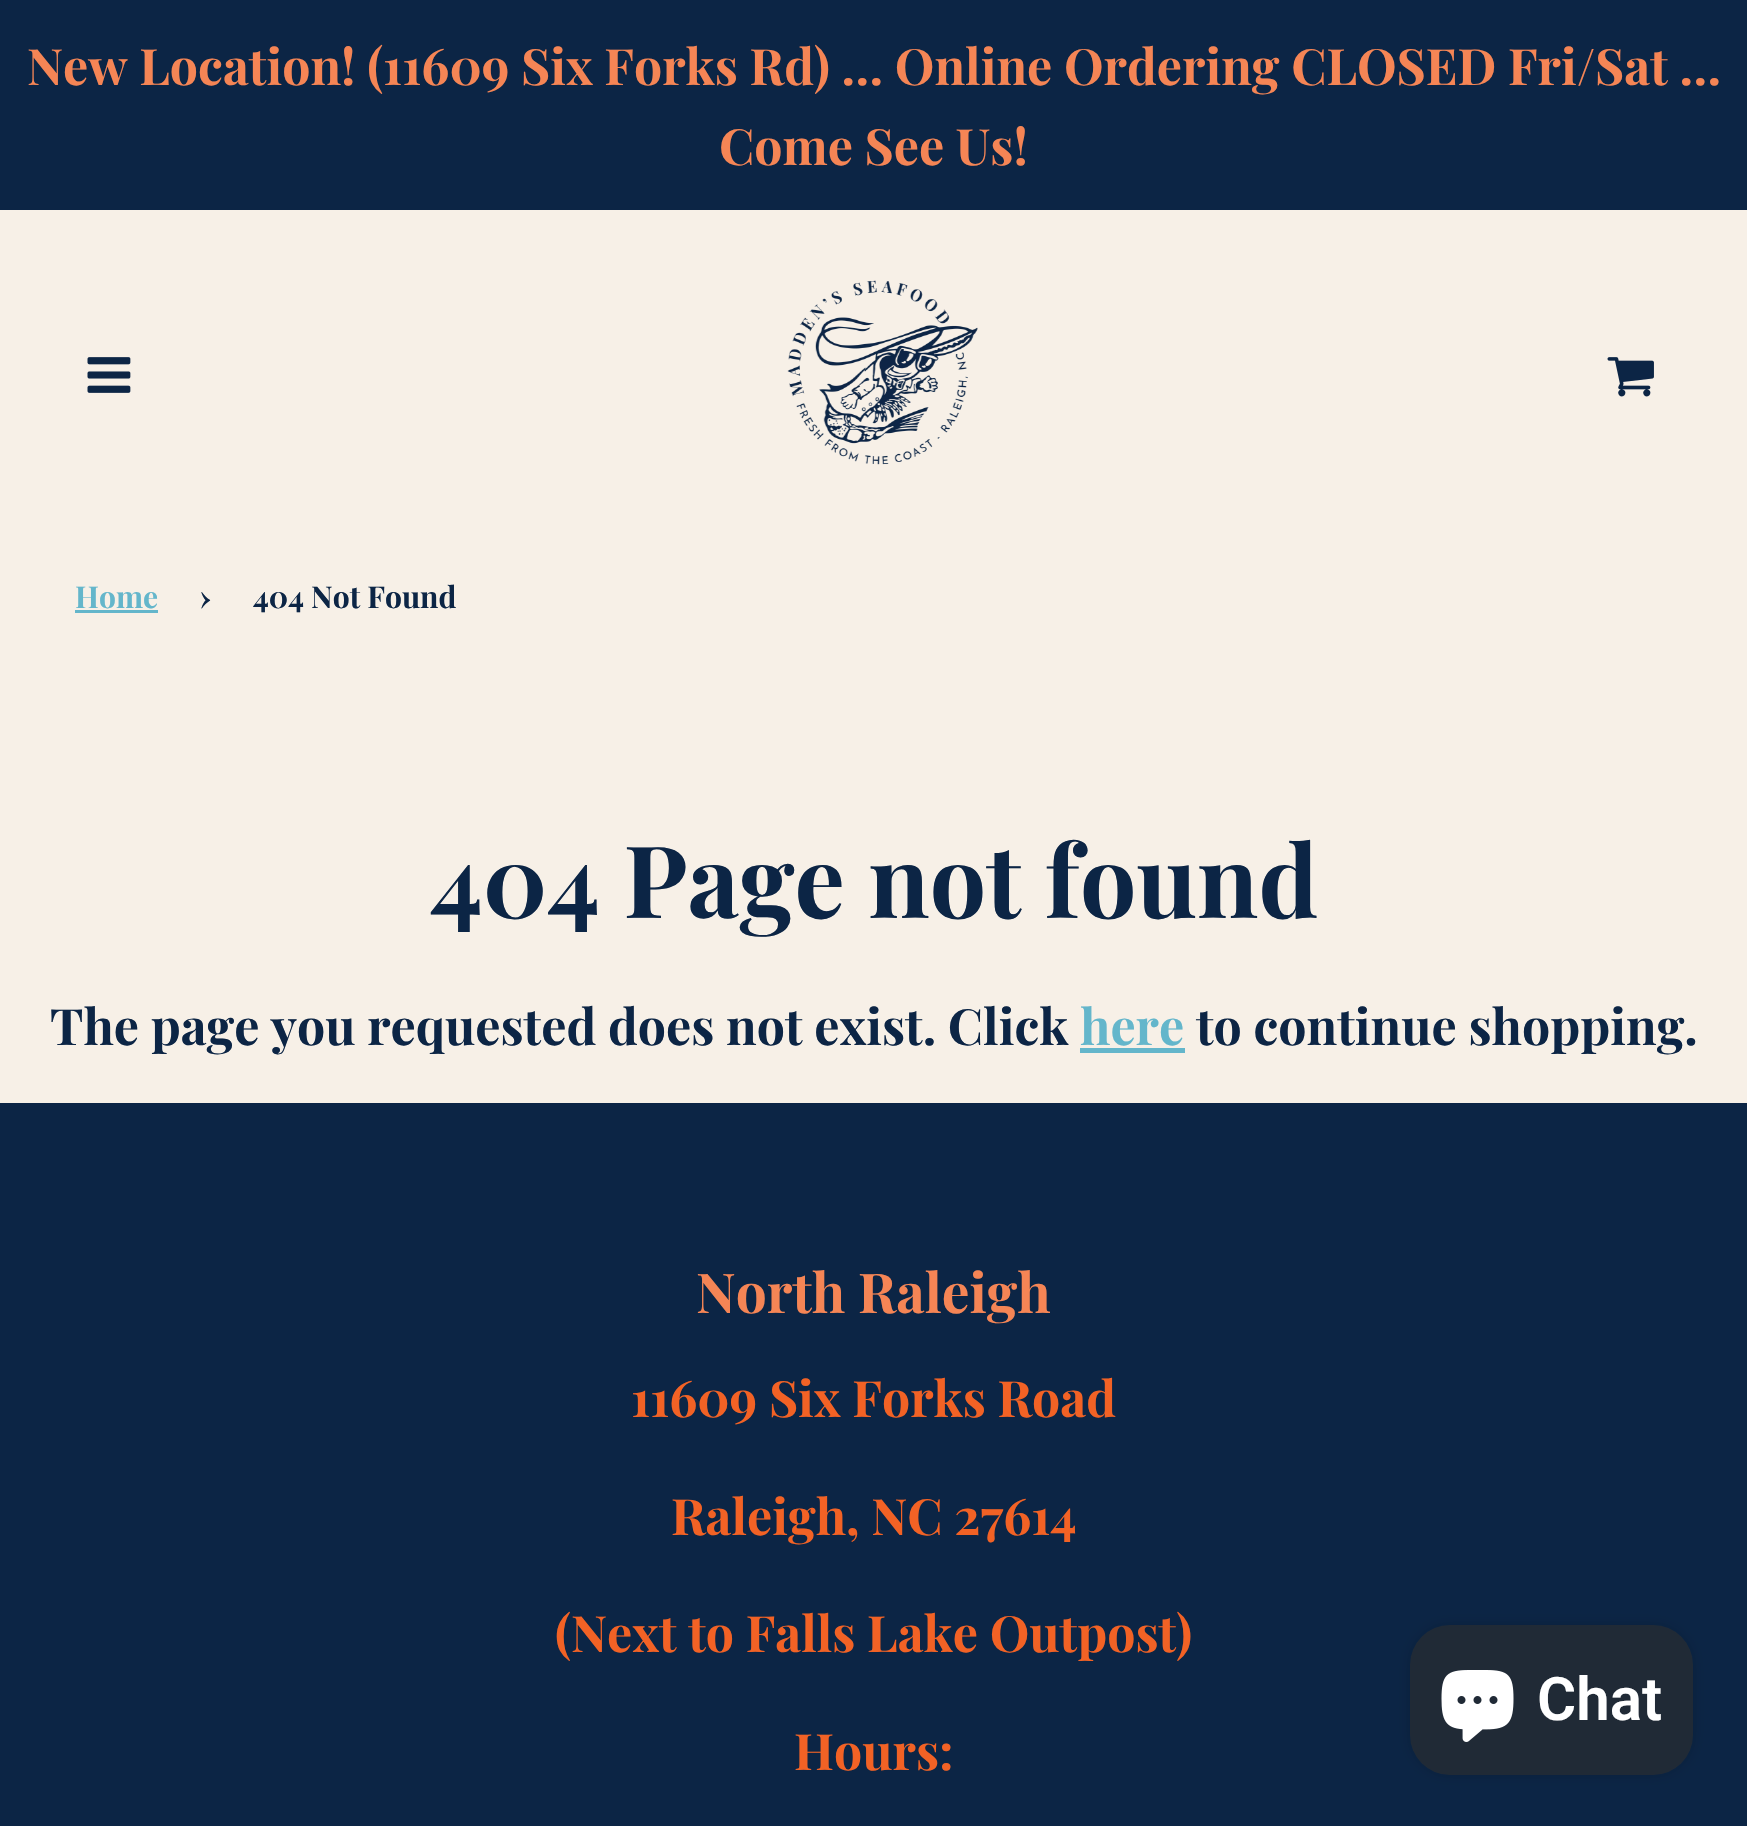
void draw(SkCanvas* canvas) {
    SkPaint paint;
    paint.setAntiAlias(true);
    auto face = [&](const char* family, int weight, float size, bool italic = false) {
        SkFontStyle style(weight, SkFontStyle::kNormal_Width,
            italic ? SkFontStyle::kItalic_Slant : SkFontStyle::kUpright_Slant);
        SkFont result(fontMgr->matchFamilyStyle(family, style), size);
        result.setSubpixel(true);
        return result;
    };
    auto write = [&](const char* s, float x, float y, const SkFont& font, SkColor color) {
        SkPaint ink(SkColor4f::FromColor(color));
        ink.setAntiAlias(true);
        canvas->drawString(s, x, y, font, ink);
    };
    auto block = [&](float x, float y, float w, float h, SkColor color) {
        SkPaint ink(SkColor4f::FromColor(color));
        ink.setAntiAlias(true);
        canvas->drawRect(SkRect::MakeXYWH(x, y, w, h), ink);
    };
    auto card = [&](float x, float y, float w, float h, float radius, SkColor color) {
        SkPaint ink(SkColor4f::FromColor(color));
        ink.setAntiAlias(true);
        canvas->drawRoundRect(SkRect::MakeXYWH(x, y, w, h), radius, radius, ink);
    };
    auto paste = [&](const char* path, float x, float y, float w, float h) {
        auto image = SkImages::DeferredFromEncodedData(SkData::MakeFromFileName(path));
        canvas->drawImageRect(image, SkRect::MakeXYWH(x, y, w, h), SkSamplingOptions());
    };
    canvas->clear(SkColorSetRGB(247, 240, 231));
    block(0, 0, 1747, 210, SkColorSetRGB(12, 37, 69));
    auto kFont1 = face("Playfair Display", 700, 50);
    write("New Location! (11609 Six Forks Rd) … Online Ordering CLOSED Fri/Sat …", 27, 85, kFont1, SkColorSetRGB(245, 133, 85));
    write("Come See Us!", 719, 165, kFont1, SkColorSetRGB(245, 133, 85));
    paste("pic1.png", 87, 357, 44, 36);
    paste("pic2.png", 787, 280, 191, 185);
    paste("pic3.png", 1607, 357, 47, 40);
    auto kFont2 = face("Playfair Display", 700, 30);
    write("Home", 75, 608, kFont2, SkColorSetRGB(100, 182, 203));
    block(75, 610, 83, 3, SkColorSetRGB(100, 182, 203));
    write("›", 200, 608, kFont2, SkColorSetRGB(12, 37, 69));
    write("404 Not Found", 253, 608, kFont2, SkColorSetRGB(12, 37, 69));
    auto kFont3 = face("Playfair Display", 700, 100);
    write("404 Page not found", 430, 918, kFont3, SkColorSetRGB(12, 37, 69));
    write("The page you requested does not exist. Click", 50, 1045, kFont1, SkColorSetRGB(12, 37, 69));
    write("here", 1080, 1045, kFont1, SkColorSetRGB(100, 182, 203));
    block(1080, 1048, 105, 5, SkColorSetRGB(100, 182, 203));
    write("to continue shopping.", 1196, 1045, kFont1, SkColorSetRGB(12, 37, 69));
    block(0, 1103, 1747, 723, SkColorSetRGB(12, 37, 69));
    auto kFont4 = face("Playfair Display", 700, 55);
    write("North Raleigh", 696, 1313, kFont4, SkColorSetRGB(245, 133, 85));
    write("11609 Six Forks Road", 631, 1417, kFont1, SkColorSetRGB(242, 98, 37));
    write("Raleigh, NC 27614", 671, 1535, kFont1, SkColorSetRGB(242, 98, 37));
    write("(Next to Falls Lake Outpost)", 555, 1652, kFont1, SkColorSetRGB(242, 98, 37));
    write("Hours:", 794, 1770, kFont1, SkColorSetRGB(242, 98, 37));
    paint.setColor(SkColorSetARGB(38, 0, 0, 0));
    paint.setMaskFilter(SkMaskFilter::MakeBlur(kNormal_SkBlurStyle, 6));
    canvas->drawRoundRect(SkRect::MakeXYWH(1410, 1625, 283, 150), 40, 40, paint);
    paint.setMaskFilter(nullptr);
    card(1410, 1625, 283, 150, 40, SkColorSetRGB(32, 42, 54));
    paste("pic4.png", 1441, 1670, 73, 72);
    auto kFont5 = face("Roboto", 600, 60);
    write("Chat", 1537, 1720, kFont5, SK_ColorWHITE);
}
